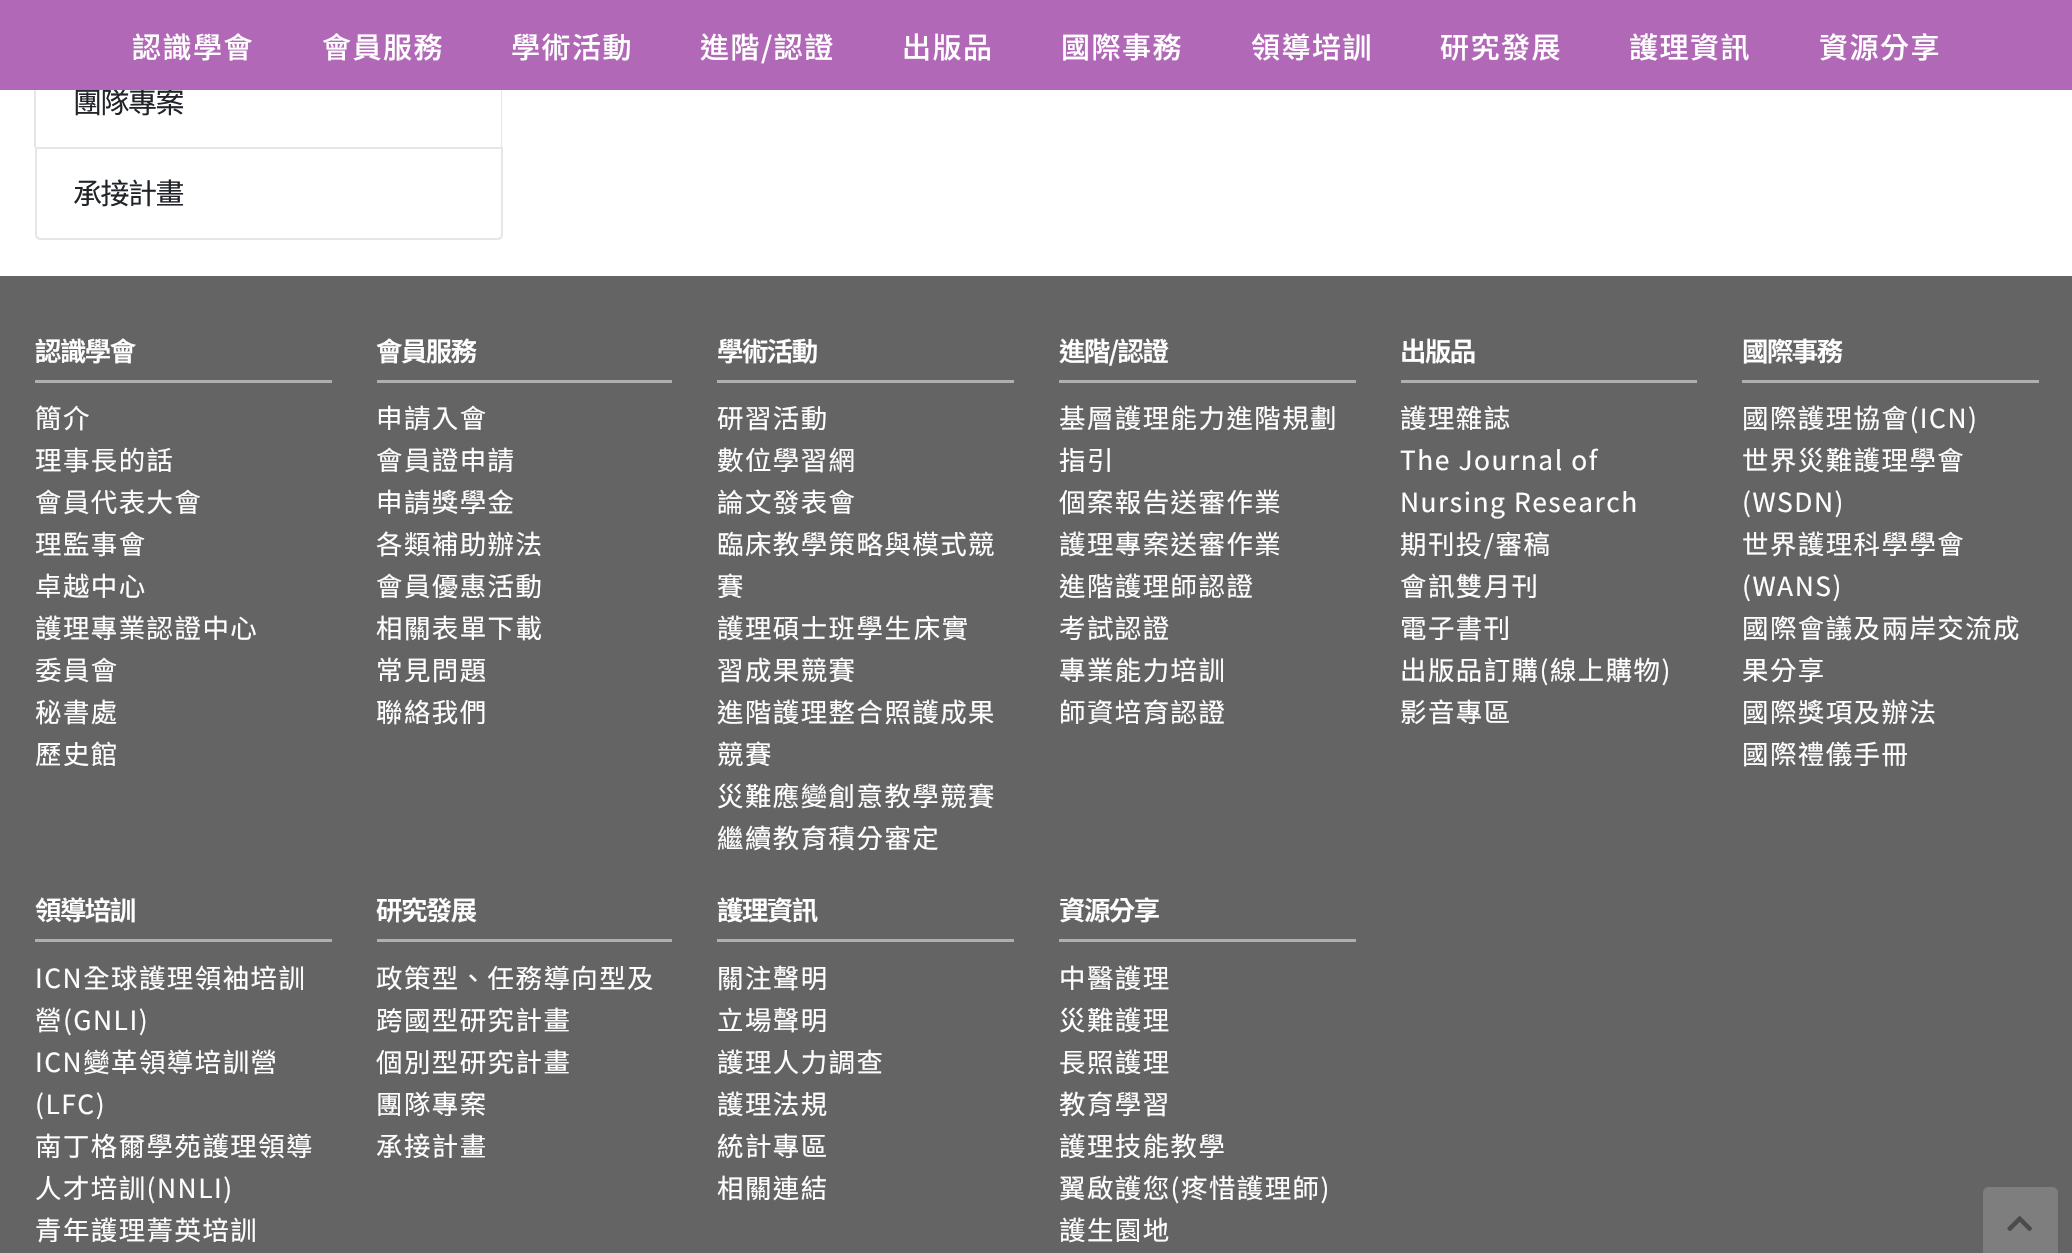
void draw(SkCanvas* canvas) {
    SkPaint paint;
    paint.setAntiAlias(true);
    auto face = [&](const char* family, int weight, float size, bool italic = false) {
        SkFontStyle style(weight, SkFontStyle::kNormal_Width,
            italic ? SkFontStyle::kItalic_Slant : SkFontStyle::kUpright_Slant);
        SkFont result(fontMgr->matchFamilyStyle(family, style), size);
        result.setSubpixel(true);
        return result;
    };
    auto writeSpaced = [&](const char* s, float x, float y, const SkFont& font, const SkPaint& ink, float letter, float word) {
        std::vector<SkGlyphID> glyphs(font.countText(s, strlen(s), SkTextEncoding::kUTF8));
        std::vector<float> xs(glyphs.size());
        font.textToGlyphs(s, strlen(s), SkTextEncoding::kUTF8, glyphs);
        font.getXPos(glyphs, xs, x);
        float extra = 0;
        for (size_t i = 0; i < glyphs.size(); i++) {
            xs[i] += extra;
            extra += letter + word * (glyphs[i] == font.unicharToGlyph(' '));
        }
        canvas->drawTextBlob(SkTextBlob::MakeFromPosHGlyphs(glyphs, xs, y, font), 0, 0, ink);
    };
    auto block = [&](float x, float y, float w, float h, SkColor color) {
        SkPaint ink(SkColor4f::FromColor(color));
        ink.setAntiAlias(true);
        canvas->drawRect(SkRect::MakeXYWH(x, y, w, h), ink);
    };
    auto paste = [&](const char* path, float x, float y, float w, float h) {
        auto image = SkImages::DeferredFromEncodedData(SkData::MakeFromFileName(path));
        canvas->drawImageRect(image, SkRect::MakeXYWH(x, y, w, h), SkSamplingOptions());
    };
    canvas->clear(SK_ColorWHITE);
    paint.setColor(SkColorSetARGB(26, 0, 0, 0));
    canvas->drawPath(SkPathBuilder().moveTo(502, 56).lineTo(502, 147).lineTo(501, 147).lineTo(501, 57).close().detach(), paint);
    canvas->drawPath(SkPathBuilder().moveTo(34, 147).lineTo(34, 56).lineTo(36, 57).lineTo(36, 147).close().detach(), paint);
    auto kFont1 = face("Noto Sans TC", 400, 29);
    paint.setColor(SkColorSetRGB(33, 37, 41));
    writeSpaced("團隊專案", 73, 113, kFont1, paint, -1.5f, 0);
    block(0, 0, 2072, 90, SkColorSetRGB(177, 104, 183));
    auto kFont2 = face("Noto Sans TC", 500, 29);
    paint.setColor(SK_ColorWHITE);
    writeSpaced("認識學會", 132, 58, kFont2, paint, 1.5f, 0);
    writeSpaced("會員服務", 322, 58, kFont2, paint, 1.5f, 0);
    writeSpaced("學術活動", 511, 58, kFont2, paint, 1.5f, 0);
    writeSpaced("進階/認證", 700, 58, kFont2, paint, 1.5f, 0);
    writeSpaced("出版品", 902, 58, kFont2, paint, 1.5f, 0);
    writeSpaced("國際事務", 1061, 58, kFont2, paint, 1.5f, 0);
    writeSpaced("領導培訓", 1251, 58, kFont2, paint, 1.5f, 0);
    writeSpaced("研究發展", 1440, 58, kFont2, paint, 1.5f, 0);
    writeSpaced("護理資訊", 1629, 58, kFont2, paint, 1.5f, 0);
    writeSpaced("資源分享", 1819, 58, kFont2, paint, 1.5f, 0);
    paint.setStyle(SkPaint::kStroke_Style);
    paint.setStrokeWidth(2);
    paint.setColor(SkColorSetRGB(230, 230, 230));
    canvas->drawPath(SkPathBuilder().moveTo(36, 148).lineTo(502, 148).lineTo(502, 234).cubicTo(502, 237, 500, 239, 497, 239).lineTo(41, 239).cubicTo(38, 239, 36, 237, 36, 234).close().detach(), paint);
    paint.setStyle(SkPaint::kFill_Style);
    paint.setColor(SkColorSetRGB(33, 37, 41));
    writeSpaced("承接計畫", 73, 204, kFont1, paint, -1.5f, 0);
    block(0, 276, 2072, 977, SkColorSetRGB(100, 100, 100));
    block(35, 380, 297, 3, SkColorSetRGB(175, 175, 175));
    auto kFont3 = face("Noto Sans TC", 600, 26.4f);
    paint.setColor(SK_ColorWHITE);
    writeSpaced("認識學會", 35, 361, kFont3, paint, -1.5f, 0);
    auto kFont4 = face("Noto Sans TC", 400, 26.4f);
    writeSpaced("簡介", 35, 428, kFont4, paint, 1.5f, 0);
    writeSpaced("理事長的話", 35, 470, kFont4, paint, 1.5f, 0);
    writeSpaced("會員代表大會", 35, 512, kFont4, paint, 1.5f, 0);
    writeSpaced("理監事會", 35, 554, kFont4, paint, 1.5f, 0);
    writeSpaced("卓越中心", 35, 596, kFont4, paint, 1.5f, 0);
    writeSpaced("護理專業認證中心", 35, 638, kFont4, paint, 1.5f, 0);
    writeSpaced("委員會", 35, 680, kFont4, paint, 1.5f, 0);
    writeSpaced("秘書處", 35, 722, kFont4, paint, 1.5f, 0);
    writeSpaced("歷史館", 35, 764, kFont4, paint, 1.5f, 0);
    block(377, 380, 295, 3, SkColorSetRGB(175, 175, 175));
    writeSpaced("會員服務", 376, 361, kFont3, paint, -1.5f, 0);
    writeSpaced("申請入會", 376, 428, kFont4, paint, 1.5f, 0);
    writeSpaced("會員證申請", 376, 470, kFont4, paint, 1.5f, 0);
    writeSpaced("申請獎學金", 376, 512, kFont4, paint, 1.5f, 0);
    writeSpaced("各類補助辦法", 376, 554, kFont4, paint, 1.5f, 0);
    writeSpaced("會員優惠活動", 376, 596, kFont4, paint, 1.5f, 0);
    writeSpaced("相關表單下載", 376, 638, kFont4, paint, 1.5f, 0);
    writeSpaced("常見問題", 376, 680, kFont4, paint, 1.5f, 0);
    writeSpaced("聯絡我們", 376, 722, kFont4, paint, 1.5f, 0);
    block(717, 380, 297, 3, SkColorSetRGB(175, 175, 175));
    writeSpaced("學術活動", 717, 361, kFont3, paint, -1.5f, 0);
    writeSpaced("研習活動", 717, 428, kFont4, paint, 1.5f, 0);
    writeSpaced("數位學習網", 717, 470, kFont4, paint, 1.5f, 0);
    writeSpaced("論文發表會", 717, 512, kFont4, paint, 1.5f, 0);
    writeSpaced("臨床教學策略與模式競", 717, 554, kFont4, paint, 1.5f, 0);
    writeSpaced("賽", 717, 596, kFont4, paint, 1.5f, 0);
    writeSpaced("護理碩士班學生臨床實", 717, 638, kFont4, paint, 1.5f, 0);
    writeSpaced("習成果競賽", 717, 680, kFont4, paint, 1.5f, 0);
    writeSpaced("進階護理整合照護成果", 717, 722, kFont4, paint, 1.5f, 0);
    writeSpaced("競賽", 717, 764, kFont4, paint, 1.5f, 0);
    writeSpaced("災難應變創意教學競賽", 717, 806, kFont4, paint, 1.5f, 0);
    writeSpaced("繼續教育積分審定", 717, 848, kFont4, paint, 1.5f, 0);
    block(1059, 380, 297, 3, SkColorSetRGB(175, 175, 175));
    writeSpaced("進階/認證", 1059, 361, kFont3, paint, -1.5f, 0);
    writeSpaced("基層護理能力進階規劃", 1059, 428, kFont4, paint, 1.5f, 0);
    writeSpaced("指引", 1059, 470, kFont4, paint, 1.5f, 0);
    writeSpaced("個案報告送審作業", 1059, 512, kFont4, paint, 1.5f, 0);
    writeSpaced("護理專案送審作業", 1059, 554, kFont4, paint, 1.5f, 0);
    writeSpaced("進階護理師認證", 1059, 596, kFont4, paint, 1.5f, 0);
    writeSpaced("考試認證", 1059, 638, kFont4, paint, 1.5f, 0);
    writeSpaced("專業能力培訓", 1059, 680, kFont4, paint, 1.5f, 0);
    writeSpaced("師資培育認證", 1059, 722, kFont4, paint, 1.5f, 0);
    block(1401, 380, 296, 3, SkColorSetRGB(175, 175, 175));
    writeSpaced("出版品", 1400, 361, kFont3, paint, -1.5f, 0);
    writeSpaced("護理雜誌", 1400, 428, kFont4, paint, 1.5f, 0);
    writeSpaced("The Journal of", 1400, 470, kFont4, paint, 1.5f, 0);
    writeSpaced("Nursing Research", 1400, 512, kFont4, paint, 1.5f, 0);
    writeSpaced("期刊投/審稿", 1400, 554, kFont4, paint, 1.5f, 0);
    writeSpaced("會訊雙月刊", 1400, 596, kFont4, paint, 1.5f, 0);
    writeSpaced("電子書刊", 1400, 638, kFont4, paint, 1.5f, 0);
    writeSpaced("出版品訂購(線上購物)", 1400, 680, kFont4, paint, 1.5f, 0);
    writeSpaced("影音專區", 1400, 722, kFont4, paint, 1.5f, 0);
    block(1742, 380, 297, 3, SkColorSetRGB(175, 175, 175));
    writeSpaced("國際事務", 1742, 361, kFont3, paint, -1.5f, 0);
    writeSpaced("國際護理協會(ICN)", 1742, 428, kFont4, paint, 1.5f, 0);
    writeSpaced("世界災難護理學會", 1742, 470, kFont4, paint, 1.5f, 0);
    writeSpaced("(WSDN)", 1742, 512, kFont4, paint, 1.5f, 0);
    writeSpaced("世界護理科學學會", 1742, 554, kFont4, paint, 1.5f, 0);
    writeSpaced("(WANS)", 1742, 596, kFont4, paint, 1.5f, 0);
    writeSpaced("國際會議及兩岸交流成", 1742, 638, kFont4, paint, 1.5f, 0);
    writeSpaced("果分享", 1742, 680, kFont4, paint, 1.5f, 0);
    writeSpaced("國際獎項及辦法", 1742, 722, kFont4, paint, 1.5f, 0);
    writeSpaced("國際禮儀手冊", 1742, 764, kFont4, paint, 1.5f, 0);
    block(35, 939, 297, 3, SkColorSetRGB(175, 175, 175));
    writeSpaced("領導培訓", 35, 920, kFont3, paint, -1.5f, 0);
    writeSpaced("ICN全球護理領袖培訓", 35, 988, kFont4, paint, 1.5f, 0);
    writeSpaced("營(GNLI)", 35, 1030, kFont4, paint, 1.5f, 0);
    writeSpaced("ICN變革領導培訓營", 35, 1072, kFont4, paint, 1.5f, 0);
    writeSpaced("(LFC)", 35, 1114, kFont4, paint, 1.5f, 0);
    writeSpaced("南丁格爾學苑護理領導", 35, 1156, kFont4, paint, 1.5f, 0);
    writeSpaced("人才培訓(NNLI)", 35, 1198, kFont4, paint, 1.5f, 0);
    writeSpaced("青年護理菁英培訓", 35, 1240, kFont4, paint, 1.5f, 0);
    block(377, 939, 295, 3, SkColorSetRGB(175, 175, 175));
    writeSpaced("研究發展", 376, 920, kFont3, paint, -1.5f, 0);
    writeSpaced("政策型、任務導向型及", 376, 988, kFont4, paint, 1.5f, 0);
    writeSpaced("跨國型研究計畫", 376, 1030, kFont4, paint, 1.5f, 0);
    writeSpaced("個別型研究計畫", 376, 1072, kFont4, paint, 1.5f, 0);
    writeSpaced("團隊專案", 376, 1114, kFont4, paint, 1.5f, 0);
    writeSpaced("承接計畫", 376, 1156, kFont4, paint, 1.5f, 0);
    block(717, 939, 297, 3, SkColorSetRGB(175, 175, 175));
    writeSpaced("護理資訊", 717, 920, kFont3, paint, -1.5f, 0);
    writeSpaced("關注聲明", 717, 988, kFont4, paint, 1.5f, 0);
    writeSpaced("立場聲明", 717, 1030, kFont4, paint, 1.5f, 0);
    writeSpaced("護理人力調查", 717, 1072, kFont4, paint, 1.5f, 0);
    writeSpaced("護理法規", 717, 1114, kFont4, paint, 1.5f, 0);
    writeSpaced("統計專區", 717, 1156, kFont4, paint, 1.5f, 0);
    writeSpaced("相關連結", 717, 1198, kFont4, paint, 1.5f, 0);
    block(1059, 939, 297, 3, SkColorSetRGB(175, 175, 175));
    writeSpaced("資源分享", 1059, 920, kFont3, paint, -1.5f, 0);
    writeSpaced("中醫護理", 1059, 988, kFont4, paint, 1.5f, 0);
    writeSpaced("災難護理", 1059, 1030, kFont4, paint, 1.5f, 0);
    writeSpaced("長照護理", 1059, 1072, kFont4, paint, 1.5f, 0);
    writeSpaced("教育學習", 1059, 1114, kFont4, paint, 1.5f, 0);
    writeSpaced("護理技能教學", 1059, 1156, kFont4, paint, 1.5f, 0);
    writeSpaced("翼啟護您(疼惜護理師)", 1059, 1198, kFont4, paint, 1.5f, 0);
    writeSpaced("護生園地", 1059, 1240, kFont4, paint, 1.5f, 0);
    paint.setColor(SkColorSetRGB(126, 126, 126));
    canvas->drawPath(SkPathBuilder().moveTo(1989, 1187).lineTo(2052, 1187).cubicTo(2055.5f, 1187, 2058, 1189.5f, 2058, 1193).lineTo(2058, 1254).lineTo(1983, 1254).lineTo(1983, 1193).cubicTo(1983, 1189.5f, 1985.5f, 1187, 1989, 1187).close().detach(), paint);
    paste("pic1.png", 2007, 1216, 25, 15);
}
